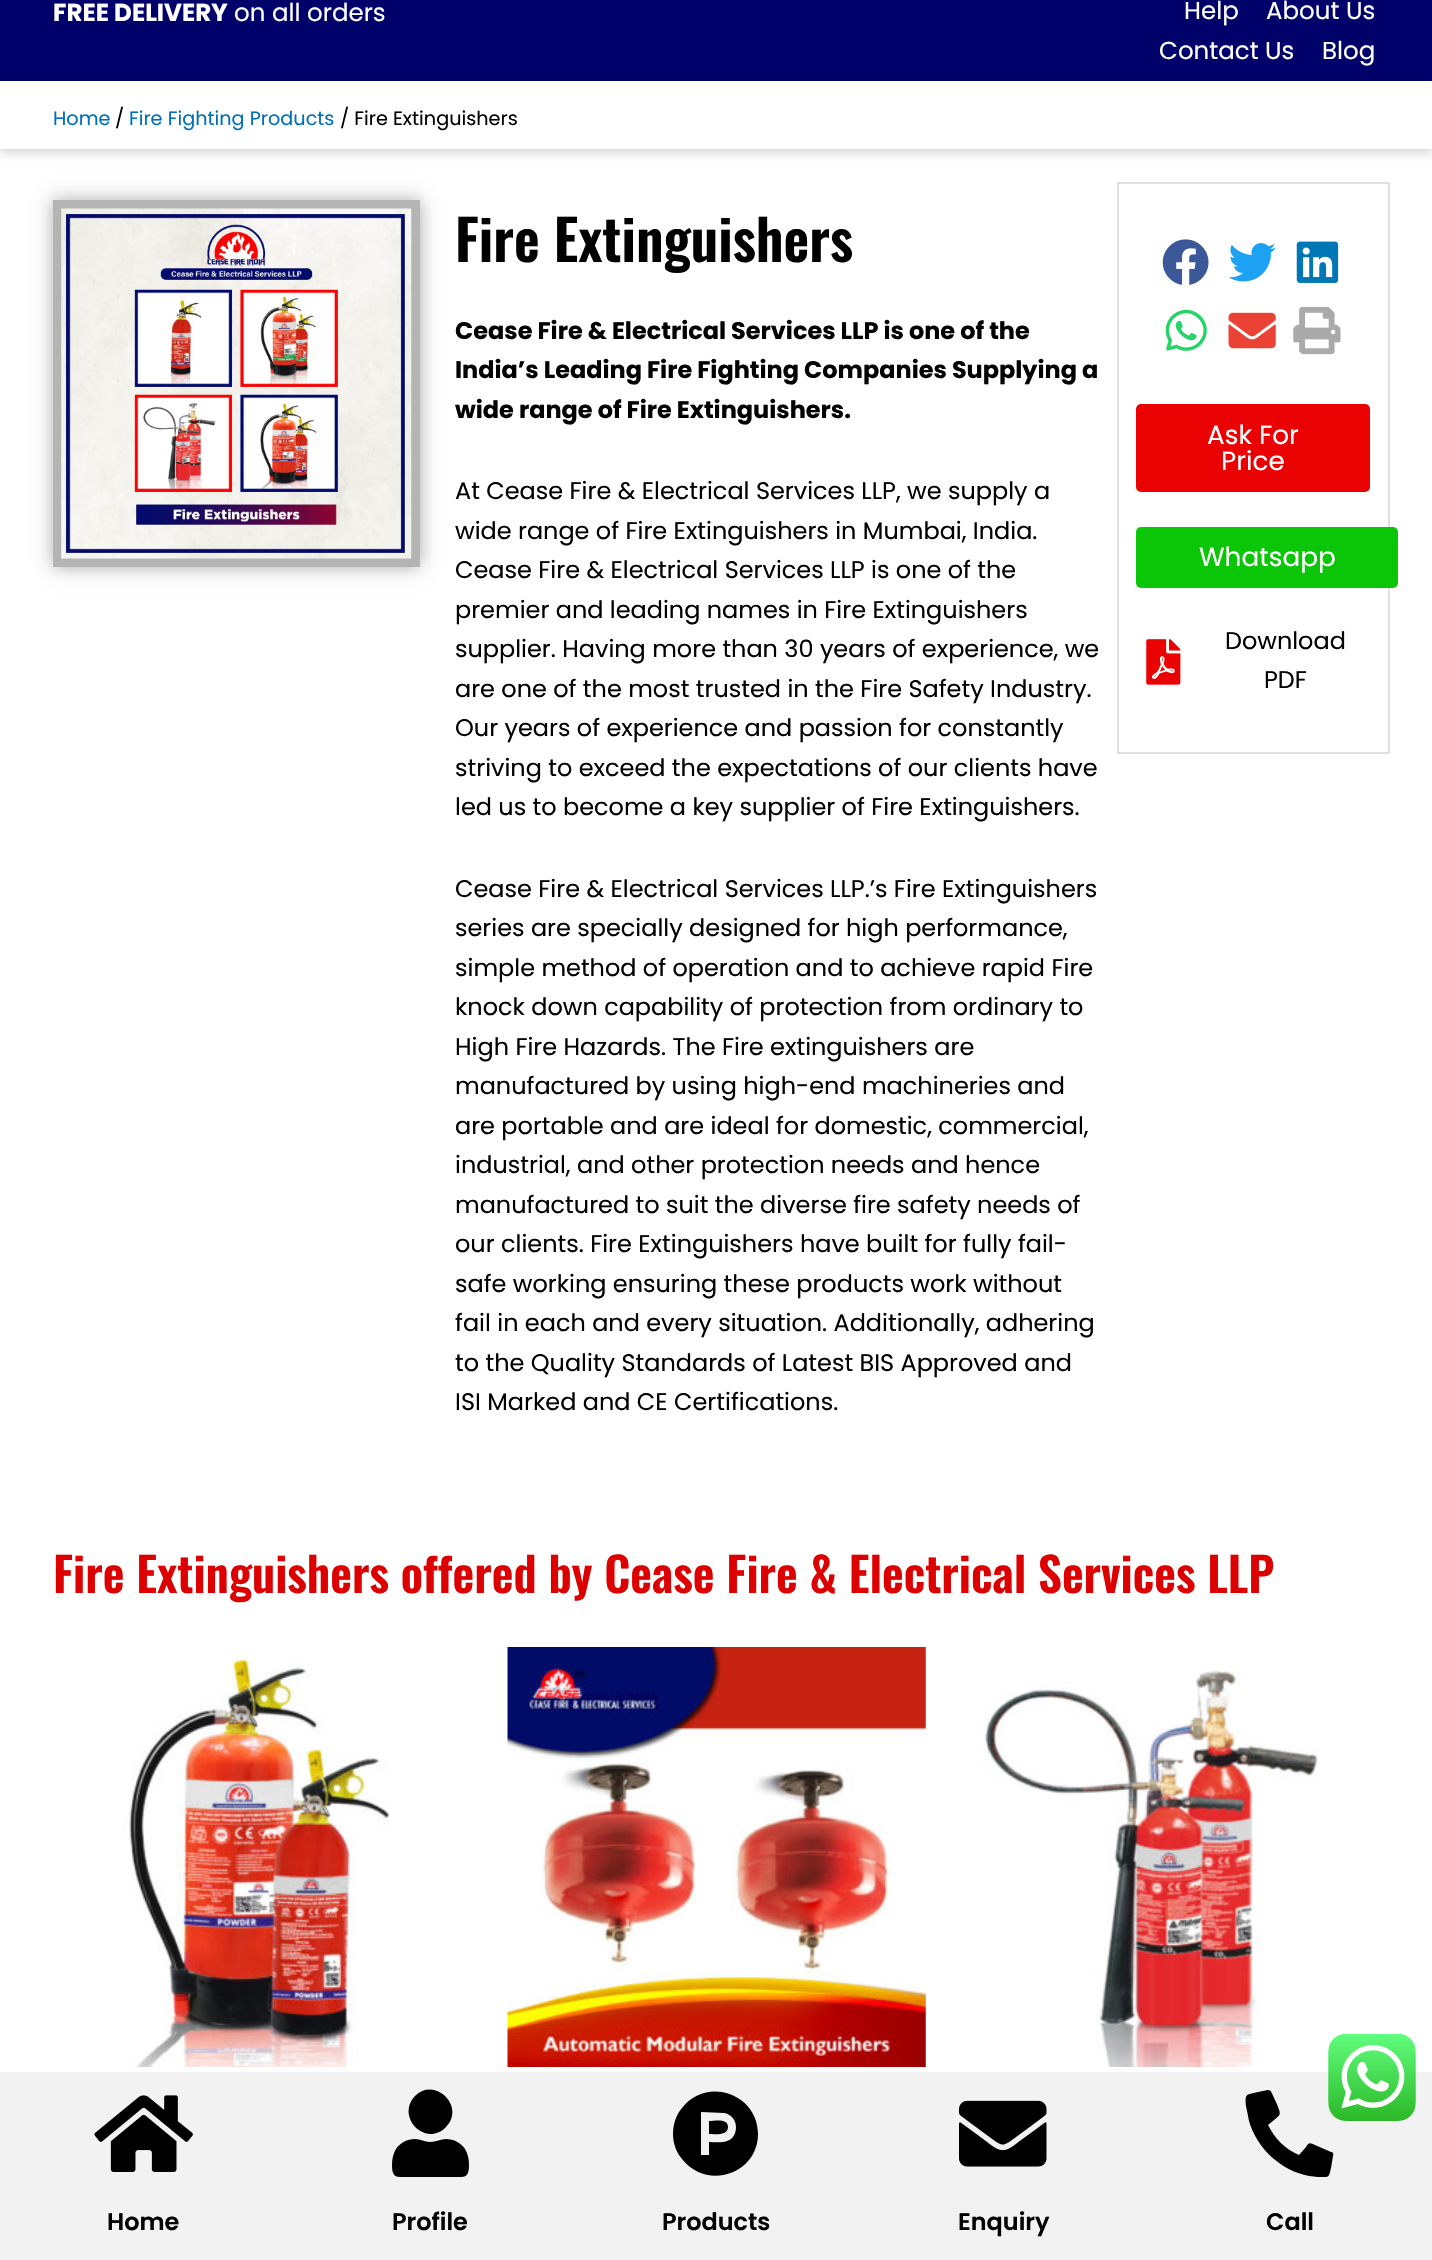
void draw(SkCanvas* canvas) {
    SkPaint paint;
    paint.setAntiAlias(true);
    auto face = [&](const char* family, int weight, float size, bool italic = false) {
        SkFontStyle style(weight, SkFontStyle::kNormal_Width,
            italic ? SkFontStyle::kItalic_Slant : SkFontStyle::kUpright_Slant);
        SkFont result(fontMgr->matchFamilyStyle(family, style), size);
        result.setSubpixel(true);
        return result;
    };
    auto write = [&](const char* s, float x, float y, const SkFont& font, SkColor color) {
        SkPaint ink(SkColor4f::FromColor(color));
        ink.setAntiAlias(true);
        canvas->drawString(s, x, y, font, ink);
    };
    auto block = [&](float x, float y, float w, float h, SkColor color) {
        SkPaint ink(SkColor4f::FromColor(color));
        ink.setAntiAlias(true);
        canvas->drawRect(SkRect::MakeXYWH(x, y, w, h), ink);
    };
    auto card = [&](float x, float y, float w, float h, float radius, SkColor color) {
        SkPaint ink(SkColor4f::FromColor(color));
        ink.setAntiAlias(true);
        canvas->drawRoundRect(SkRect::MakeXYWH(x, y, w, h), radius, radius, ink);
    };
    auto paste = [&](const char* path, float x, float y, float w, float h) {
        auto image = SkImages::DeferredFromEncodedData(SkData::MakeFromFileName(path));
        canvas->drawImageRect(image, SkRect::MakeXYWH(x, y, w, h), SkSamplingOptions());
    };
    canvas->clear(SK_ColorWHITE);
    block(0, 0, 1432, 81, SkColorSetRGB(0, 0, 106));
    auto kFont1 = face("Poppins", 700, 24.5f);
    write("FREE DELIVERY", 53, 21, kFont1, SK_ColorWHITE);
    auto kFont2 = face("Poppins", 400, 24.5f);
    write("on all orders", 234, 21, kFont2, SK_ColorWHITE);
    write("Help", 1184, 19, kFont2, SK_ColorWHITE);
    write("About Us", 1266, 19, kFont2, SK_ColorWHITE);
    write("Contact Us", 1159, 59, kFont2, SK_ColorWHITE);
    write("Blog", 1322, 59, kFont2, SK_ColorWHITE);
    canvas->save();
    canvas->clipPath(SkPathBuilder(SkPathFillType::kEvenOdd).moveTo(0, 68).lineTo(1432, 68).lineTo(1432, 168).lineTo(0, 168).close().moveTo(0, 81).lineTo(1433, 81).lineTo(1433, 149).lineTo(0, 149).close().detach(), true);
    paint.setColor(SkColorSetARGB(48, 0, 0, 0));
    paint.setMaskFilter(SkMaskFilter::MakeBlur(kNormal_SkBlurStyle, 5));
    canvas->drawRect(SkRect::MakeXYWH(0, 84, 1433, 68), paint);
    paint.setMaskFilter(nullptr);
    canvas->restore();
    auto kFont3 = face("Poppins", 400, 19.25f);
    write("Home", 53, 125, kFont3, SkColorSetRGB(1, 112, 185));
    write("/", 115, 125, kFont3, SK_ColorBLACK);
    write("Fire Fighting Products", 129, 125, kFont3, SkColorSetRGB(1, 112, 185));
    write("/ Fire Extinguishers", 340, 125, kFont3, SK_ColorBLACK);
    paint.setColor(SkColorSetARGB(84, 0, 0, 0));
    paint.setMaskFilter(SkMaskFilter::MakeBlur(kNormal_SkBlurStyle, 9));
    canvas->drawRect(SkRect::MakeXYWH(53, 200, 367, 367), paint);
    paint.setMaskFilter(nullptr);
    paint.setStyle(SkPaint::kStroke_Style);
    paint.setStrokeWidth(9);
    paint.setColor(SkColorSetRGB(180, 180, 180));
    canvas->drawRect(SkRect::MakeXYWH(57.5f, 204.5f, 358, 358), paint);
    paste("pic1.png", 61, 208, 351, 351);
    auto kFont4 = face("Oswald", 600, 56);
    write("Fire Extinguishers", 455, 262, kFont4, SK_ColorBLACK);
    auto kFont5 = face("Poppins", 700, 23.95f);
    write("Cease Fire & Electrical Services LLP is one of the", 455, 339, kFont5, SK_ColorBLACK);
    write("India’s Leading Fire Fighting Companies Supplying a", 455, 378, kFont5, SK_ColorBLACK);
    write("wide range of Fire Extinguishers.", 455, 418, kFont5, SK_ColorBLACK);
    auto kFont6 = face("Poppins", 400, 23.95f);
    write("At Cease Fire & Electrical Services LLP, we supply a", 455, 499, kFont6, SK_ColorBLACK);
    write("wide range of Fire Extinguishers in Mumbai, India.", 455, 539, kFont6, SK_ColorBLACK);
    write("Cease Fire & Electrical Services LLP is one of the", 455, 578, kFont6, SK_ColorBLACK);
    write("premier and leading names in Fire Extinguishers", 455, 618, kFont6, SK_ColorBLACK);
    write("supplier. Having more than 30 years of experience, we", 455, 657, kFont6, SK_ColorBLACK);
    write("are one of the most trusted in the Fire Safety Industry.", 455, 697, kFont6, SK_ColorBLACK);
    write("Our years of experience and passion for constantly", 455, 736, kFont6, SK_ColorBLACK);
    write("striving to exceed the expectations of our clients have", 455, 776, kFont6, SK_ColorBLACK);
    write("led us to become a key supplier of Fire Extinguishers.", 455, 815, kFont6, SK_ColorBLACK);
    write("Cease Fire & Electrical Services LLP.’s Fire Extinguishers", 455, 897, kFont6, SK_ColorBLACK);
    write("series are specially designed for high performance,", 455, 936, kFont6, SK_ColorBLACK);
    write("simple method of operation and to achieve rapid Fire", 455, 976, kFont6, SK_ColorBLACK);
    write("knock down capability of protection from ordinary to", 455, 1015, kFont6, SK_ColorBLACK);
    write("High Fire Hazards. The Fire extinguishers are", 455, 1055, kFont6, SK_ColorBLACK);
    write("manufactured by using high-end machineries and", 455, 1094, kFont6, SK_ColorBLACK);
    write("are portable and are ideal for domestic, commercial,", 455, 1134, kFont6, SK_ColorBLACK);
    write("industrial, and other protection needs and hence", 455, 1173, kFont6, SK_ColorBLACK);
    write("manufactured to suit the diverse fire safety needs of", 455, 1213, kFont6, SK_ColorBLACK);
    write("our clients. Fire Extinguishers have built for fully fail-", 455, 1252, kFont6, SK_ColorBLACK);
    write("safe working ensuring these products work without", 455, 1292, kFont6, SK_ColorBLACK);
    write("fail in each and every situation. Additionally, adhering", 455, 1331, kFont6, SK_ColorBLACK);
    write("to the Quality Standards of Latest BIS Approved and", 455, 1371, kFont6, SK_ColorBLACK);
    write("ISI Marked and CE Certifications.", 455, 1410, kFont6, SK_ColorBLACK);
    paint.setStrokeWidth(2);
    paint.setColor(SkColorSetRGB(224, 224, 224));
    canvas->drawRect(SkRect::MakeXYWH(1118, 183, 271, 570), paint);
    paste("pic2.png", 1162, 239, 47, 46);
    paste("pic3.png", 1229, 243, 47, 39);
    paste("pic4.png", 1296, 241, 43, 42);
    paste("pic5.png", 1165, 309, 42, 42);
    paste("pic6.png", 1228, 312, 48, 37);
    paste("pic7.png", 1293, 306, 48, 49);
    card(1136, 404, 234, 88, 5, SkColorSetRGB(234, 1, 1));
    auto kFont7 = face("Poppins", 400, 26.25f);
    write("Ask For", 1207, 444, kFont7, SK_ColorWHITE);
    write("Price", 1221, 470, kFont7, SK_ColorWHITE);
    card(1136, 527, 262, 61, 5, SkColorSetRGB(11, 198, 7));
    write("Whatsapp", 1199, 566, kFont7, SK_ColorWHITE);
    paste("pic8.png", 1146, 639, 35, 46);
    write("Download", 1225, 649, kFont6, SK_ColorBLACK);
    write("PDF", 1264, 688, kFont6, SK_ColorBLACK);
    auto kFont8 = face("Oswald", 600, 47.25f);
    write("Fire Extinguishers offered by Cease Fire & Electrical Services LLP", 53, 1593, kFont8, SkColorSetRGB(221, 0, 0));
    paste("pic9.png", 124, 1658, 265, 409);
    paste("pic10.png", 507, 1647, 419, 420);
    paste("pic11.png", 983, 1670, 336, 397);
    block(0, 2072, 1432, 188, SkColorSetRGB(242, 242, 242));
    paste("pic12.png", 94, 2095, 99, 77);
    auto kFont9 = face("Poppins", 600, 23.95f);
    write("Home", 107, 2230, kFont9, SK_ColorBLACK);
    paint.setStyle(SkPaint::kFill_Style);
    paint.setColor(SK_ColorBLACK);
    canvas->drawPath(SkPathBuilder().moveTo(446, 2127).cubicTo(426, 2148, 395, 2117, 415, 2096).cubicTo(435, 2076, 466, 2107, 446, 2127).close().moveTo(446, 2139).cubicTo(454, 2139, 461, 2143, 465, 2149).cubicTo(468, 2154, 469, 2159, 469, 2165).cubicTo(469, 2179, 464, 2177, 451, 2177).lineTo(410, 2177).cubicTo(397, 2177, 392, 2179, 392, 2165).cubicTo(392, 2159, 393, 2154, 396, 2149).cubicTo(400, 2143, 407, 2139, 415, 2139).cubicTo(420, 2139, 425, 2142, 430, 2142).cubicTo(436, 2142, 441, 2139, 446, 2139).close().detach(), paint);
    write("Profile", 392, 2230, kFont9, SK_ColorBLACK);
    canvas->drawPath(SkPathBuilder().moveTo(728, 2127).cubicTo(728, 2136, 715, 2134, 709, 2134).lineTo(709, 2121).cubicTo(715, 2121, 728, 2118, 728, 2127).close().moveTo(758, 2134).cubicTo(758, 2174, 707, 2191, 682, 2159).cubicTo(676, 2152, 673, 2143, 673, 2134).cubicTo(673, 2124, 676, 2115, 682, 2108).cubicTo(707, 2076, 758, 2094, 758, 2134).close().moveTo(736, 2127).cubicTo(736, 2120, 731, 2114, 724, 2113).lineTo(701, 2112).lineTo(701, 2155).lineTo(709, 2155).lineTo(709, 2142).cubicTo(718, 2142, 727, 2144, 733, 2137).cubicTo(735, 2134, 736, 2131, 736, 2127).close().detach(), paint);
    write("Products", 662, 2230, kFont9, SK_ColorBLACK);
    paste("pic13.png", 959, 2100, 88, 67);
    write("Enquiry", 958, 2230, kFont9, SK_ColorBLACK);
    canvas->drawPath(SkPathBuilder().moveTo(1331, 2152).cubicTo(1333, 2152, 1334, 2154, 1333, 2156).lineTo(1331, 2168).cubicTo(1330, 2171, 1330, 2178, 1325, 2177).cubicTo(1319, 2177, 1316, 2177, 1309, 2176).cubicTo(1282, 2171, 1257, 2149, 1249, 2121).cubicTo(1248, 2116, 1247, 2111, 1246, 2106).cubicTo(1245, 2093, 1246, 2095, 1258, 2092).cubicTo(1272, 2089, 1269, 2087, 1276, 2102).cubicTo(1282, 2117, 1282, 2113, 1268, 2125).cubicTo(1275, 2139, 1285, 2149, 1299, 2155).lineTo(1306, 2147).cubicTo(1309, 2142, 1310, 2143, 1315, 2145).close().detach(), paint);
    write("Call", 1266, 2230, kFont9, SK_ColorBLACK);
    paste("pic14.png", 1328, 2034, 88, 87);
}
